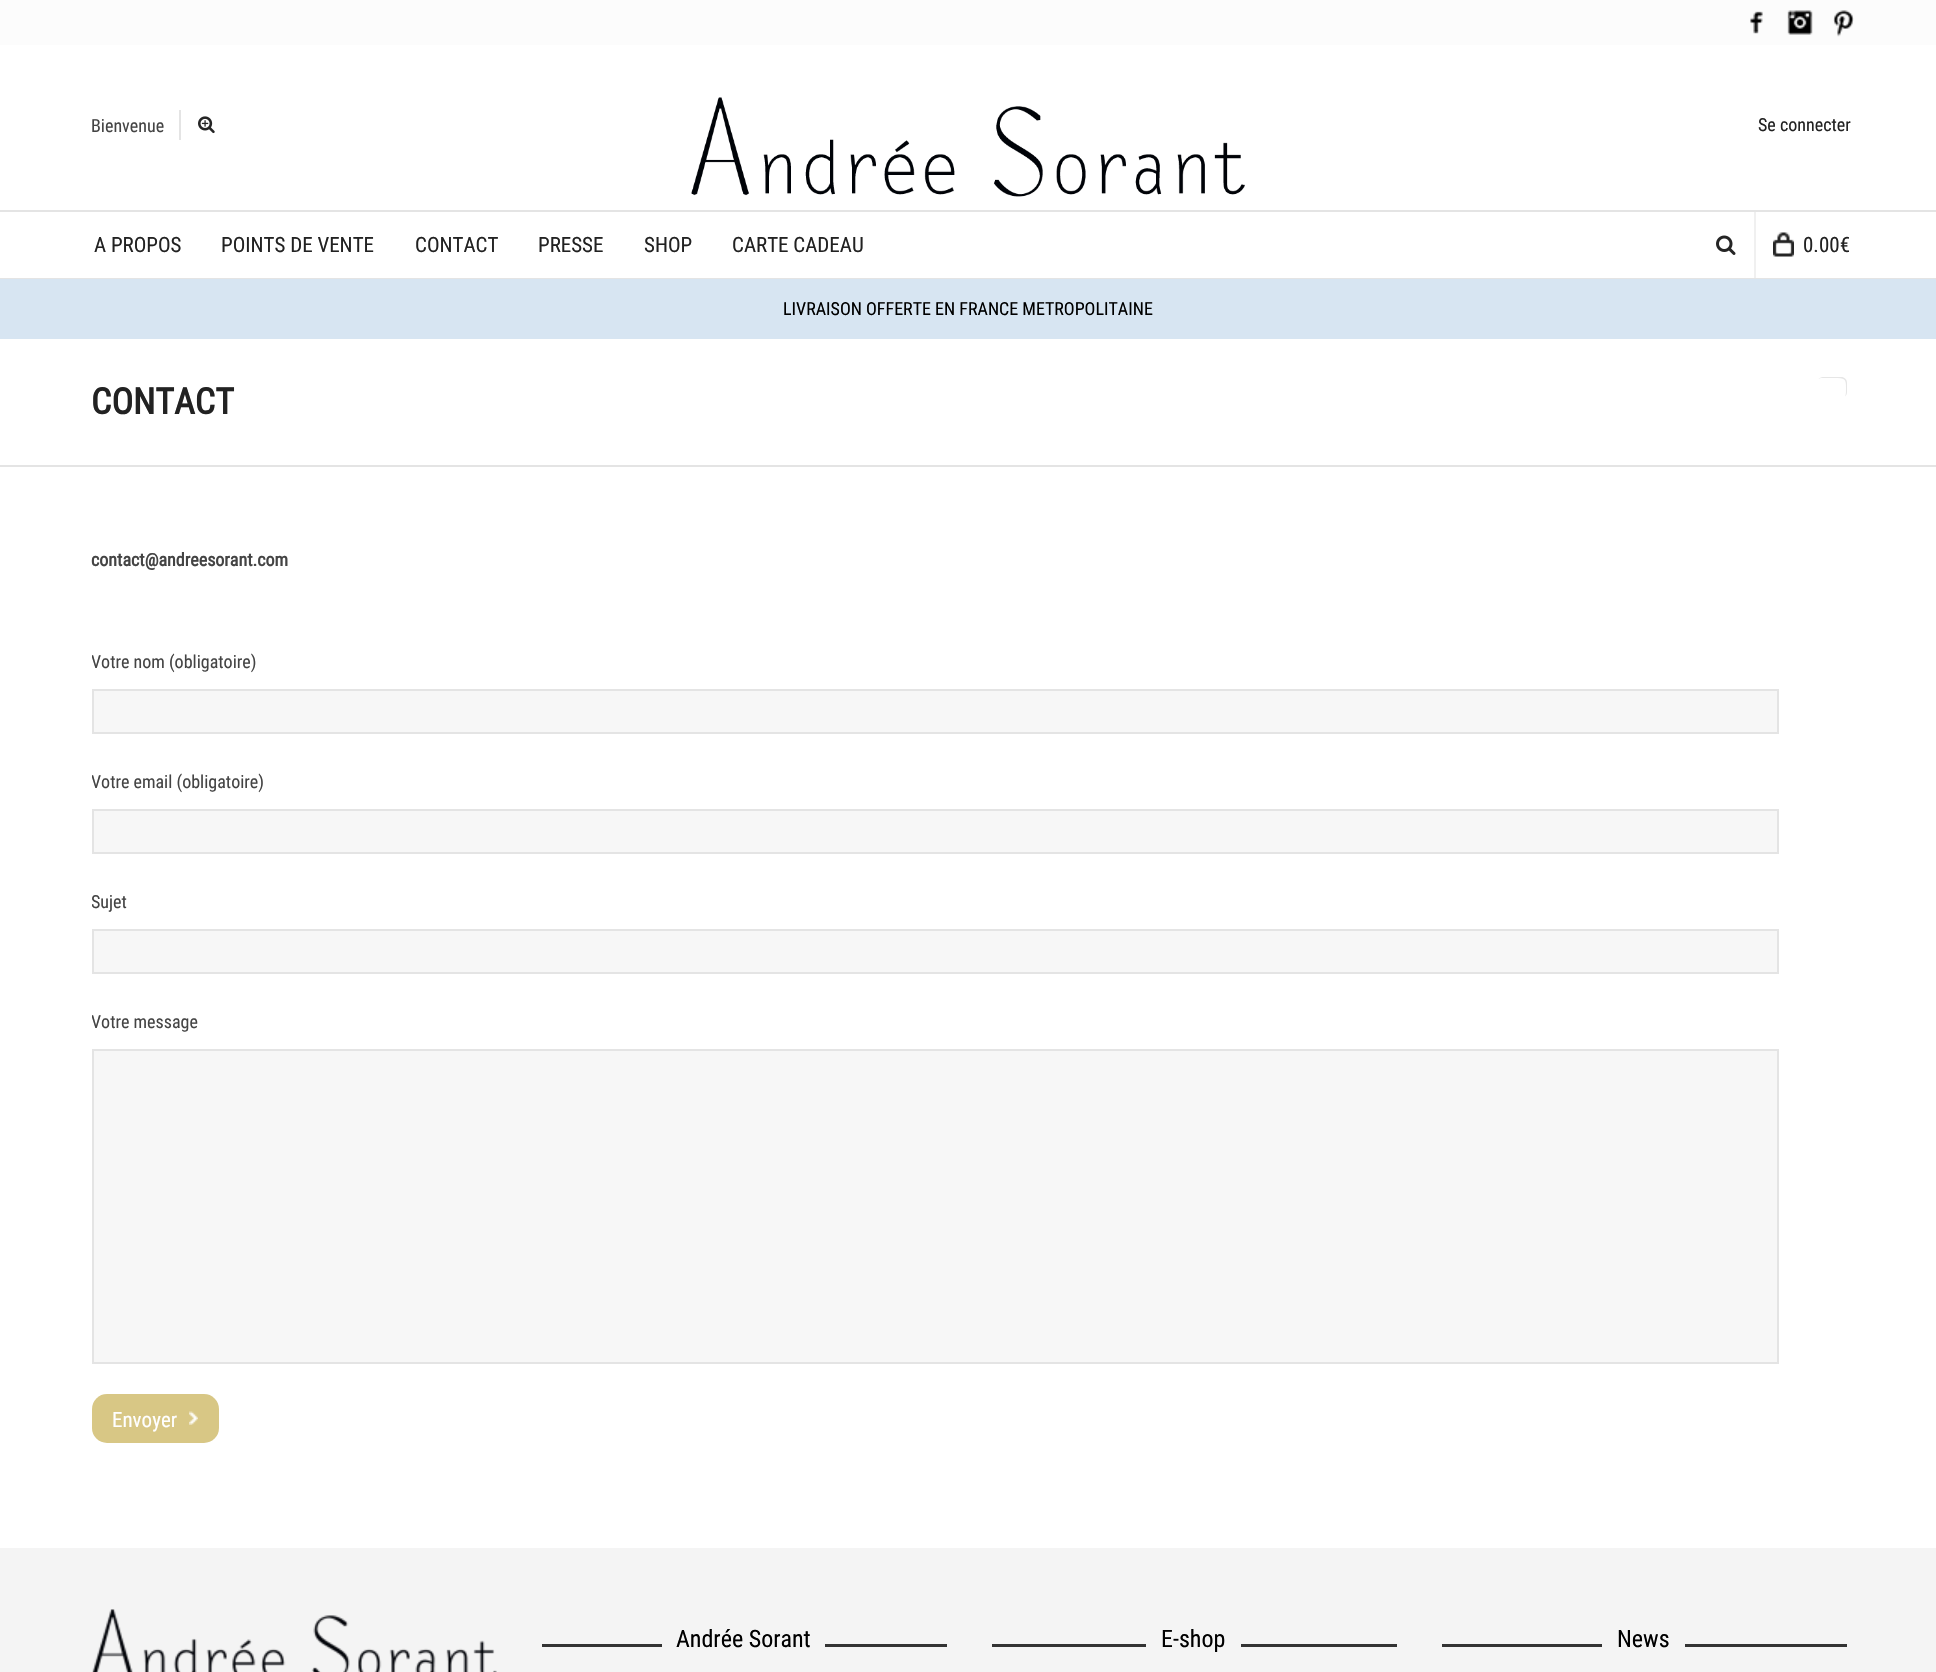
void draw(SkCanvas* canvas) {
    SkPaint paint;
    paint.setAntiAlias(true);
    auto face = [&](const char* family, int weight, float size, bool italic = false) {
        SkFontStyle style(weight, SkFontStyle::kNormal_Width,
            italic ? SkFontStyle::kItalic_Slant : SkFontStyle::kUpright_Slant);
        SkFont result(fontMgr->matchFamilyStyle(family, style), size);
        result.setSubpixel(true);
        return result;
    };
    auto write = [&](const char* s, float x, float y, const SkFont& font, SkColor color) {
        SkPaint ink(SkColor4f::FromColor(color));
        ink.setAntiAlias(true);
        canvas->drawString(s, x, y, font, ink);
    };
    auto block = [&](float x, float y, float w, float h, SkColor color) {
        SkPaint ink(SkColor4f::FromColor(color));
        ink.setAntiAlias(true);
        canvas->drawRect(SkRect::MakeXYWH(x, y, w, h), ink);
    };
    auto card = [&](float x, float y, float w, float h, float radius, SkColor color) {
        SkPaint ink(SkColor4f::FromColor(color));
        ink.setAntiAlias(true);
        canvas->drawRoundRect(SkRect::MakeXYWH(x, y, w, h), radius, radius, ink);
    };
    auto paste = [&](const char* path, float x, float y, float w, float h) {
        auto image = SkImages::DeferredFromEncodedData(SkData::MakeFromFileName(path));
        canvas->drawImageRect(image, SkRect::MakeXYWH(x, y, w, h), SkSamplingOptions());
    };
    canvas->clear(SkColorSetRGB(228, 228, 228));
    block(0, 0, 1936, 45, SkColorSetRGB(252, 252, 252));
    paste("pic1.png", 1750, 11, 13, 23);
    paste("pic2.png", 1787, 10, 26, 25);
    paste("pic3.png", 1833, 10, 21, 27);
    block(0, 45, 1936, 233, SK_ColorWHITE);
    auto kFont1 = face("Roboto Condensed", 400, 18);
    write("Bienvenue", 91, 132, kFont1, SkColorSetRGB(68, 68, 68));
    block(179, 110, 2, 30, SkColorSetRGB(228, 228, 228));
    paste("pic4.png", 198, 116, 17, 18);
    paste("pic5.png", 691, 97, 554, 100);
    write("Se connecter", 1758, 131, kFont1, SkColorSetRGB(34, 34, 34));
    block(0, 210, 1936, 2, SkColorSetRGB(228, 228, 228));
    auto kFont2 = face("Roboto Condensed", 400, 21);
    write("A PROPOS", 94, 252, kFont2, SkColorSetRGB(34, 34, 34));
    write("POINTS DE VENTE", 221, 252, kFont2, SkColorSetRGB(34, 34, 34));
    write("CONTACT", 415, 252, kFont2, SkColorSetRGB(34, 34, 34));
    write("PRESSE", 538, 252, kFont2, SkColorSetRGB(34, 34, 34));
    write("SHOP", 644, 252, kFont2, SkColorSetRGB(34, 34, 34));
    write("CARTE CADEAU", 732, 252, kFont2, SkColorSetRGB(34, 34, 34));
    paste("pic6.png", 1716, 235, 20, 20);
    block(1754, 212, 2, 66, SkColorSetRGB(240, 240, 240));
    paste("pic7.png", 1773, 232, 21, 25);
    write("0.00€", 1803, 252, kFont2, SkColorSetRGB(34, 34, 34));
    block(0, 279, 1936, 60, SkColorSetRGB(215, 229, 242));
    write("LIVRAISON OFFERTE EN FRANCE METROPOLITAINE", 783, 315, kFont1, SK_ColorBLACK);
    block(0, 339, 1936, 1209, SK_ColorWHITE);
    block(0, 465, 1936, 2, SkColorSetRGB(228, 228, 228));
    auto kFont3 = face("Roboto Condensed", 700, 36);
    write("CONTACT", 91, 414, kFont3, SkColorSetRGB(34, 34, 34));
    paint.setColor(SkColorSetRGB(230, 230, 230));
    canvas->drawPath(SkPathBuilder().moveTo(1822, 378).lineTo(1838, 378).cubicTo(1846, 378, 1846, 381.5f, 1846, 388).lineTo(1846, 390).cubicTo(1846, 392, 1846, 394.5f, 1845, 396.5f).cubicTo(1846, 395.5f, 1847, 394, 1847, 392).lineTo(1847, 383).cubicTo(1847, 379.5f, 1844.5f, 377, 1841, 377).lineTo(1823, 377).cubicTo(1821, 377, 1819.5f, 378, 1818.5f, 379).cubicTo(1819.5f, 378.5f, 1820.5f, 378, 1822, 378).close().detach(), paint);
    auto kFont4 = face("Roboto Condensed", 700, 18);
    write("contact@andreesorant.com", 91, 566, kFont4, SkColorSetRGB(68, 68, 68));
    canvas->save();
    canvas->clipRect(SkRect::MakeXYWH(92, 644, 1755, 120));
    write("Votre nom (obligatoire)", 91, 668, kFont1, SkColorSetRGB(68, 68, 68));
    canvas->restore();
    paint.setColor(SkColorSetRGB(247, 247, 247));
    canvas->drawRect(SkRect::MakeXYWH(93, 690, 1685, 43), paint);
    paint.setStyle(SkPaint::kStroke_Style);
    paint.setStrokeWidth(2);
    paint.setColor(SkColorSetRGB(228, 228, 228));
    canvas->drawRect(SkRect::MakeXYWH(93, 690, 1685, 43), paint);
    canvas->save();
    canvas->clipRect(SkRect::MakeXYWH(92, 764, 1755, 120));
    write("Votre email (obligatoire)", 91, 788, kFont1, SkColorSetRGB(68, 68, 68));
    canvas->restore();
    paint.setStyle(SkPaint::kFill_Style);
    paint.setColor(SkColorSetRGB(247, 247, 247));
    canvas->drawRect(SkRect::MakeXYWH(93, 810, 1685, 43), paint);
    paint.setStyle(SkPaint::kStroke_Style);
    paint.setColor(SkColorSetRGB(228, 228, 228));
    canvas->drawRect(SkRect::MakeXYWH(93, 810, 1685, 43), paint);
    canvas->save();
    canvas->clipRect(SkRect::MakeXYWH(92, 884, 1755, 120));
    write("Sujet", 91, 908, kFont1, SkColorSetRGB(68, 68, 68));
    canvas->restore();
    paint.setStyle(SkPaint::kFill_Style);
    paint.setColor(SkColorSetRGB(247, 247, 247));
    canvas->drawRect(SkRect::MakeXYWH(93, 930, 1685, 43), paint);
    paint.setStyle(SkPaint::kStroke_Style);
    paint.setColor(SkColorSetRGB(228, 228, 228));
    canvas->drawRect(SkRect::MakeXYWH(93, 930, 1685, 43), paint);
    canvas->save();
    canvas->clipRect(SkRect::MakeXYWH(92, 1004, 1755, 390));
    write("Votre message", 91, 1028, kFont1, SkColorSetRGB(68, 68, 68));
    canvas->restore();
    paint.setStyle(SkPaint::kFill_Style);
    paint.setColor(SkColorSetRGB(247, 247, 247));
    canvas->drawRect(SkRect::MakeXYWH(93, 1050, 1685, 313), paint);
    paint.setStyle(SkPaint::kStroke_Style);
    paint.setColor(SkColorSetRGB(228, 228, 228));
    canvas->drawRect(SkRect::MakeXYWH(93, 1050, 1685, 313), paint);
    card(92, 1394, 127, 49, 15, SkColorSetRGB(216, 199, 133));
    paste("pic8.png", 189, 1411, 9, 14);
    write("Envoyer", 112, 1427, kFont2, SK_ColorWHITE);
    block(0, 1548, 1936, 124, SkColorSetRGB(244, 244, 244));
    paste("pic9.png", 92, 1609, 405, 63);
    block(542, 1644, 405, 3, SkColorSetRGB(51, 51, 51));
    block(662, 1644, 163, 3, SkColorSetRGB(244, 244, 244));
    auto kFont5 = face("Roboto Condensed", 400, 24);
    write("Andrée Sorant", 676, 1647, kFont5, SK_ColorBLACK);
    block(992, 1644, 405, 3, SkColorSetRGB(51, 51, 51));
    block(1146, 1644, 95, 3, SkColorSetRGB(244, 244, 244));
    write("E-shop", 1161, 1647, kFont5, SK_ColorBLACK);
    block(1442, 1644, 405, 3, SkColorSetRGB(51, 51, 51));
    block(1602, 1644, 83, 3, SkColorSetRGB(244, 244, 244));
    write("News", 1617, 1647, kFont5, SK_ColorBLACK);
}
